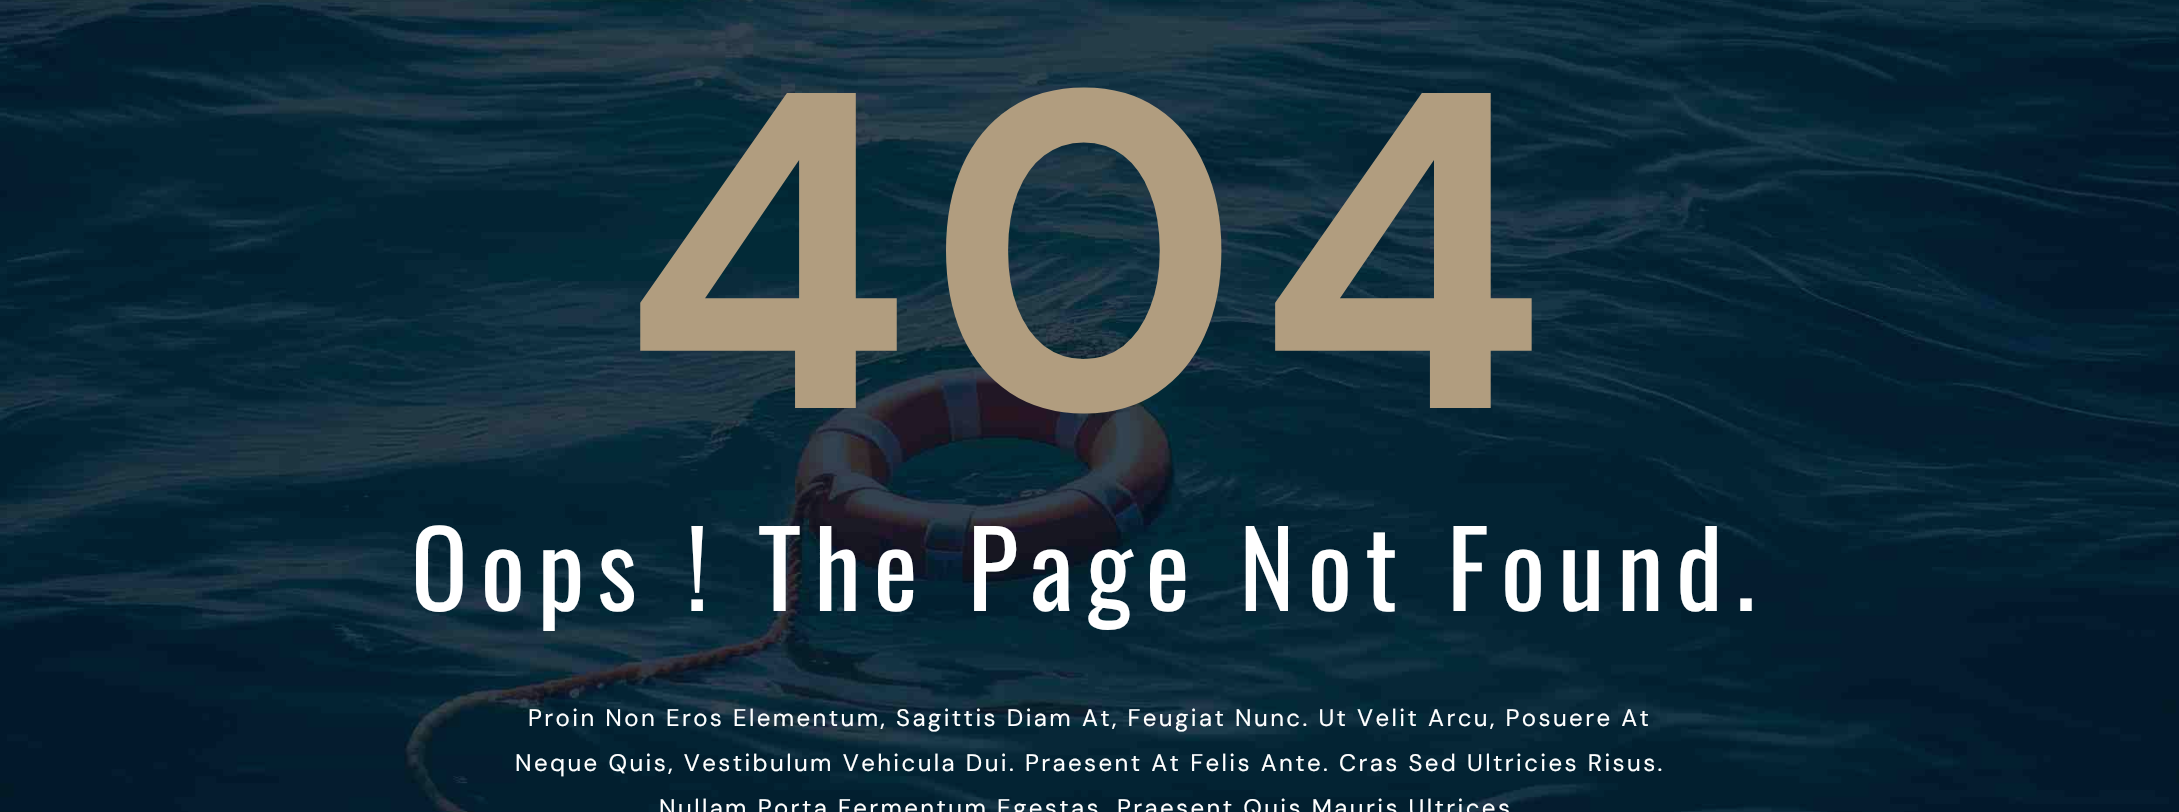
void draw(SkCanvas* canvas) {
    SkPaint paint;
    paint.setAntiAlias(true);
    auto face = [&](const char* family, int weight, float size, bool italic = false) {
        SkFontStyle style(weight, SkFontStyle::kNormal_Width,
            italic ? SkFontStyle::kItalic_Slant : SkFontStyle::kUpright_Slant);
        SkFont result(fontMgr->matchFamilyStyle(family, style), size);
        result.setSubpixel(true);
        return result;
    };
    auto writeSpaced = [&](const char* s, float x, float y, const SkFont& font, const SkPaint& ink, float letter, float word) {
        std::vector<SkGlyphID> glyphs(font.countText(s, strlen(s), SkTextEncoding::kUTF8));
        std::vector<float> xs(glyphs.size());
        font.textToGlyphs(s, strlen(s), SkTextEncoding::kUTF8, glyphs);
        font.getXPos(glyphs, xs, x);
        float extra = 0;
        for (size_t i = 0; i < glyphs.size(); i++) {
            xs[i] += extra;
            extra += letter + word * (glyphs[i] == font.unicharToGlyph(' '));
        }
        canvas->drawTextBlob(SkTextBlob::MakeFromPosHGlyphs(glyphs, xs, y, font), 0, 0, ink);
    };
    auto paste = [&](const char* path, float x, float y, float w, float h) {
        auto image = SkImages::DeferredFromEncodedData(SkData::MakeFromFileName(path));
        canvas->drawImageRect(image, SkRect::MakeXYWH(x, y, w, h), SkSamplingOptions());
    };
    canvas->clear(SK_ColorWHITE);
    paste("pic1.png", 0, 0, 2179, 812);
    auto kFont1 = face("DM Sans", 700, 450);
    paint.setColor(SkColorSetRGB(177, 157, 127));
    writeSpaced("404", 620, 408, kFont1, paint, 12.8f, 0);
    auto kFont2 = face("Oswald", 400, 105);
    paint.setColor(SK_ColorWHITE);
    writeSpaced("Oops ! The Page Not Found.", 411, 611, kFont2, paint, 12.8f, 0);
    auto kFont3 = face("DM Sans", 400, 24);
    writeSpaced("Proin Non Eros Elementum, Sagittis Diam At, Feugiat Nunc. Ut Velit Arcu, Posuere At", 528, 726, kFont3, paint, 2.4f, 0);
    writeSpaced("Neque Quis, Vestibulum Vehicula Dui. Praesent At Felis Ante. Cras Sed Ultricies Risus.", 515, 771, kFont3, paint, 2.4f, 0);
    writeSpaced("Nullam Porta Fermentum Egestas. Praesent Quis Mauris Ultrices", 659, 816, kFont3, paint, 2.4f, 0);
}
